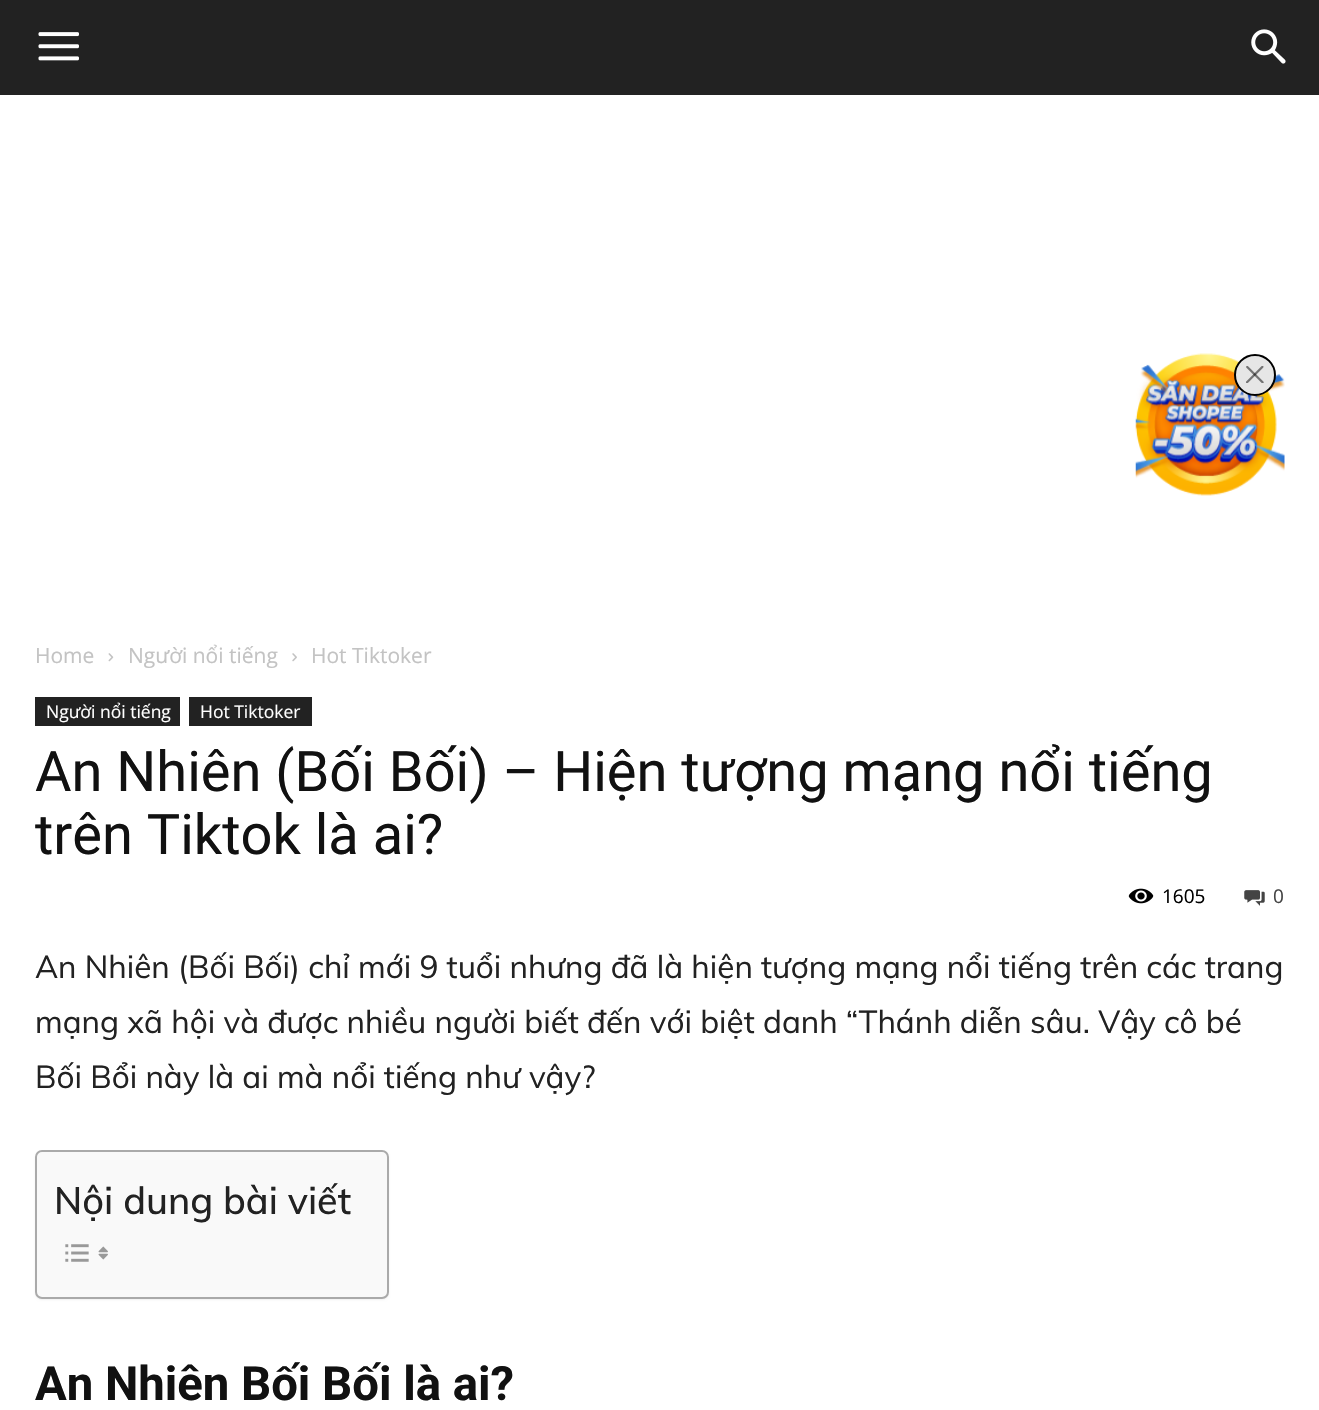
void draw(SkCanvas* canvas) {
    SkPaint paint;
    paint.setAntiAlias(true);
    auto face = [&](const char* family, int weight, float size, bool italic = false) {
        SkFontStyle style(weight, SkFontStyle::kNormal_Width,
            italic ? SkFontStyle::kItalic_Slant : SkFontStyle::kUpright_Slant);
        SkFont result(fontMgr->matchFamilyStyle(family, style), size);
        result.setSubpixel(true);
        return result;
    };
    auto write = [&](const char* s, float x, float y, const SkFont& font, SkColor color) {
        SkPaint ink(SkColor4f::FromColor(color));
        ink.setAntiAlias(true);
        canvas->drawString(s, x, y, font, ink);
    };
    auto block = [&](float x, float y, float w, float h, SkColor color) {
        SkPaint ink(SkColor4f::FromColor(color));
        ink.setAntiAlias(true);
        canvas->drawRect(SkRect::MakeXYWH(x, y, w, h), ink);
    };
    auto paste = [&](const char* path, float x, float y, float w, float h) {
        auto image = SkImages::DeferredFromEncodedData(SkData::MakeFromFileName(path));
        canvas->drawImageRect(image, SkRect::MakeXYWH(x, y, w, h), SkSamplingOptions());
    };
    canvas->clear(SK_ColorWHITE);
    paste("pic1.png", 1135, 353, 150, 143);
    paint.setColor(SkColorSetRGB(230, 230, 230));
    canvas->drawCircle(1255, 375, 20, paint);
    paint.setStyle(SkPaint::kStroke_Style);
    paint.setStrokeWidth(2);
    paint.setColor(SK_ColorBLACK);
    canvas->drawCircle(1255, 375, 20, paint);
    paste("pic2.png", 1246, 366, 18, 17);
    block(0, 0, 1319, 95, SkColorSetRGB(34, 34, 34));
    paste("pic3.png", 38, 32, 41, 29);
    paste("pic4.png", 1251, 29, 35, 35);
    auto kFont1 = face("Open Sans", 400, 21);
    write("Home", 35, 663, kFont1, SkColorSetRGB(195, 195, 195));
    paste("pic5.png", 108, 653, 6, 9);
    write("Người nổi tiếng", 128, 663, kFont1, SkColorSetRGB(195, 195, 195));
    paste("pic6.png", 292, 653, 5, 9);
    write("Hot Tiktoker", 311, 663, kFont1, SkColorSetRGB(195, 195, 195));
    block(35, 697, 145, 29, SkColorSetRGB(34, 34, 34));
    auto kFont2 = face("Open Sans", 400, 17.5f);
    write("Người nổi tiếng", 46, 718, kFont2, SK_ColorWHITE);
    block(189, 697, 123, 29, SkColorSetRGB(34, 34, 34));
    write("Hot Tiktoker", 200, 718, kFont2, SK_ColorWHITE);
    auto kFont3 = face("Roboto", 400, 56);
    write("An Nhiên (Bối Bối) – Hiện tượng mạng nổi tiếng", 35, 791, kFont3, SkColorSetRGB(17, 17, 17));
    write("trên Tiktok là ai?", 35, 854, kFont3, SkColorSetRGB(17, 17, 17));
    paste("pic7.png", 1128, 888, 26, 16);
    auto kFont4 = face("Open Sans", 400, 19);
    write("1605", 1162, 903, kFont4, SK_ColorBLACK);
    paste("pic8.png", 1244, 890, 21, 16);
    write("0", 1273, 903, kFont4, SkColorSetRGB(68, 68, 68));
    auto kFont5 = face("Muli", 400, 31.5f);
    write("An Nhiên (Bối Bối) chỉ mới 9 tuổi nhưng đã là hiện tượng mạng nổi tiếng trên các trang", 35, 978, kFont5, SkColorSetRGB(34, 34, 34));
    write("mạng xã hội và được nhiều người biết đến với biệt danh “Thánh diễn sâu. Vậy cô bé", 35, 1033, kFont5, SkColorSetRGB(34, 34, 34));
    write("Bối Bổi này là ai mà nổi tiếng như vậy?", 35, 1088, kFont5, SkColorSetRGB(34, 34, 34));
    paint.setStyle(SkPaint::kFill_Style);
    paint.setColor(SkColorSetARGB(13, 0, 0, 0));
    paint.setMaskFilter(SkMaskFilter::MakeBlur(kNormal_SkBlurStyle, 1));
    canvas->drawRoundRect(SkRect::MakeXYWH(35, 1152, 354, 148), 7, 7, paint);
    paint.setMaskFilter(nullptr);
    paint.setColor(SkColorSetRGB(249, 249, 249));
    canvas->drawRoundRect(SkRect::MakeXYWH(36, 1151, 352, 147), 6, 6, paint);
    paint.setStyle(SkPaint::kStroke_Style);
    paint.setColor(SkColorSetRGB(170, 170, 170));
    canvas->drawRoundRect(SkRect::MakeXYWH(36, 1151, 352, 147), 6, 6, paint);
    auto kFont6 = face("Muli", 500, 37.75f);
    write("Nội dung bài viết", 54, 1214, kFont6, SkColorSetRGB(34, 34, 34));
    paste("pic9.png", 65, 1244, 24, 18);
    paste("pic10.png", 98, 1246, 10, 14);
    auto kFont7 = face("Roboto", 700, 47.25f);
    write("An Nhiên Bối Bối là ai?", 35, 1400, kFont7, SkColorSetRGB(17, 17, 17));
}
